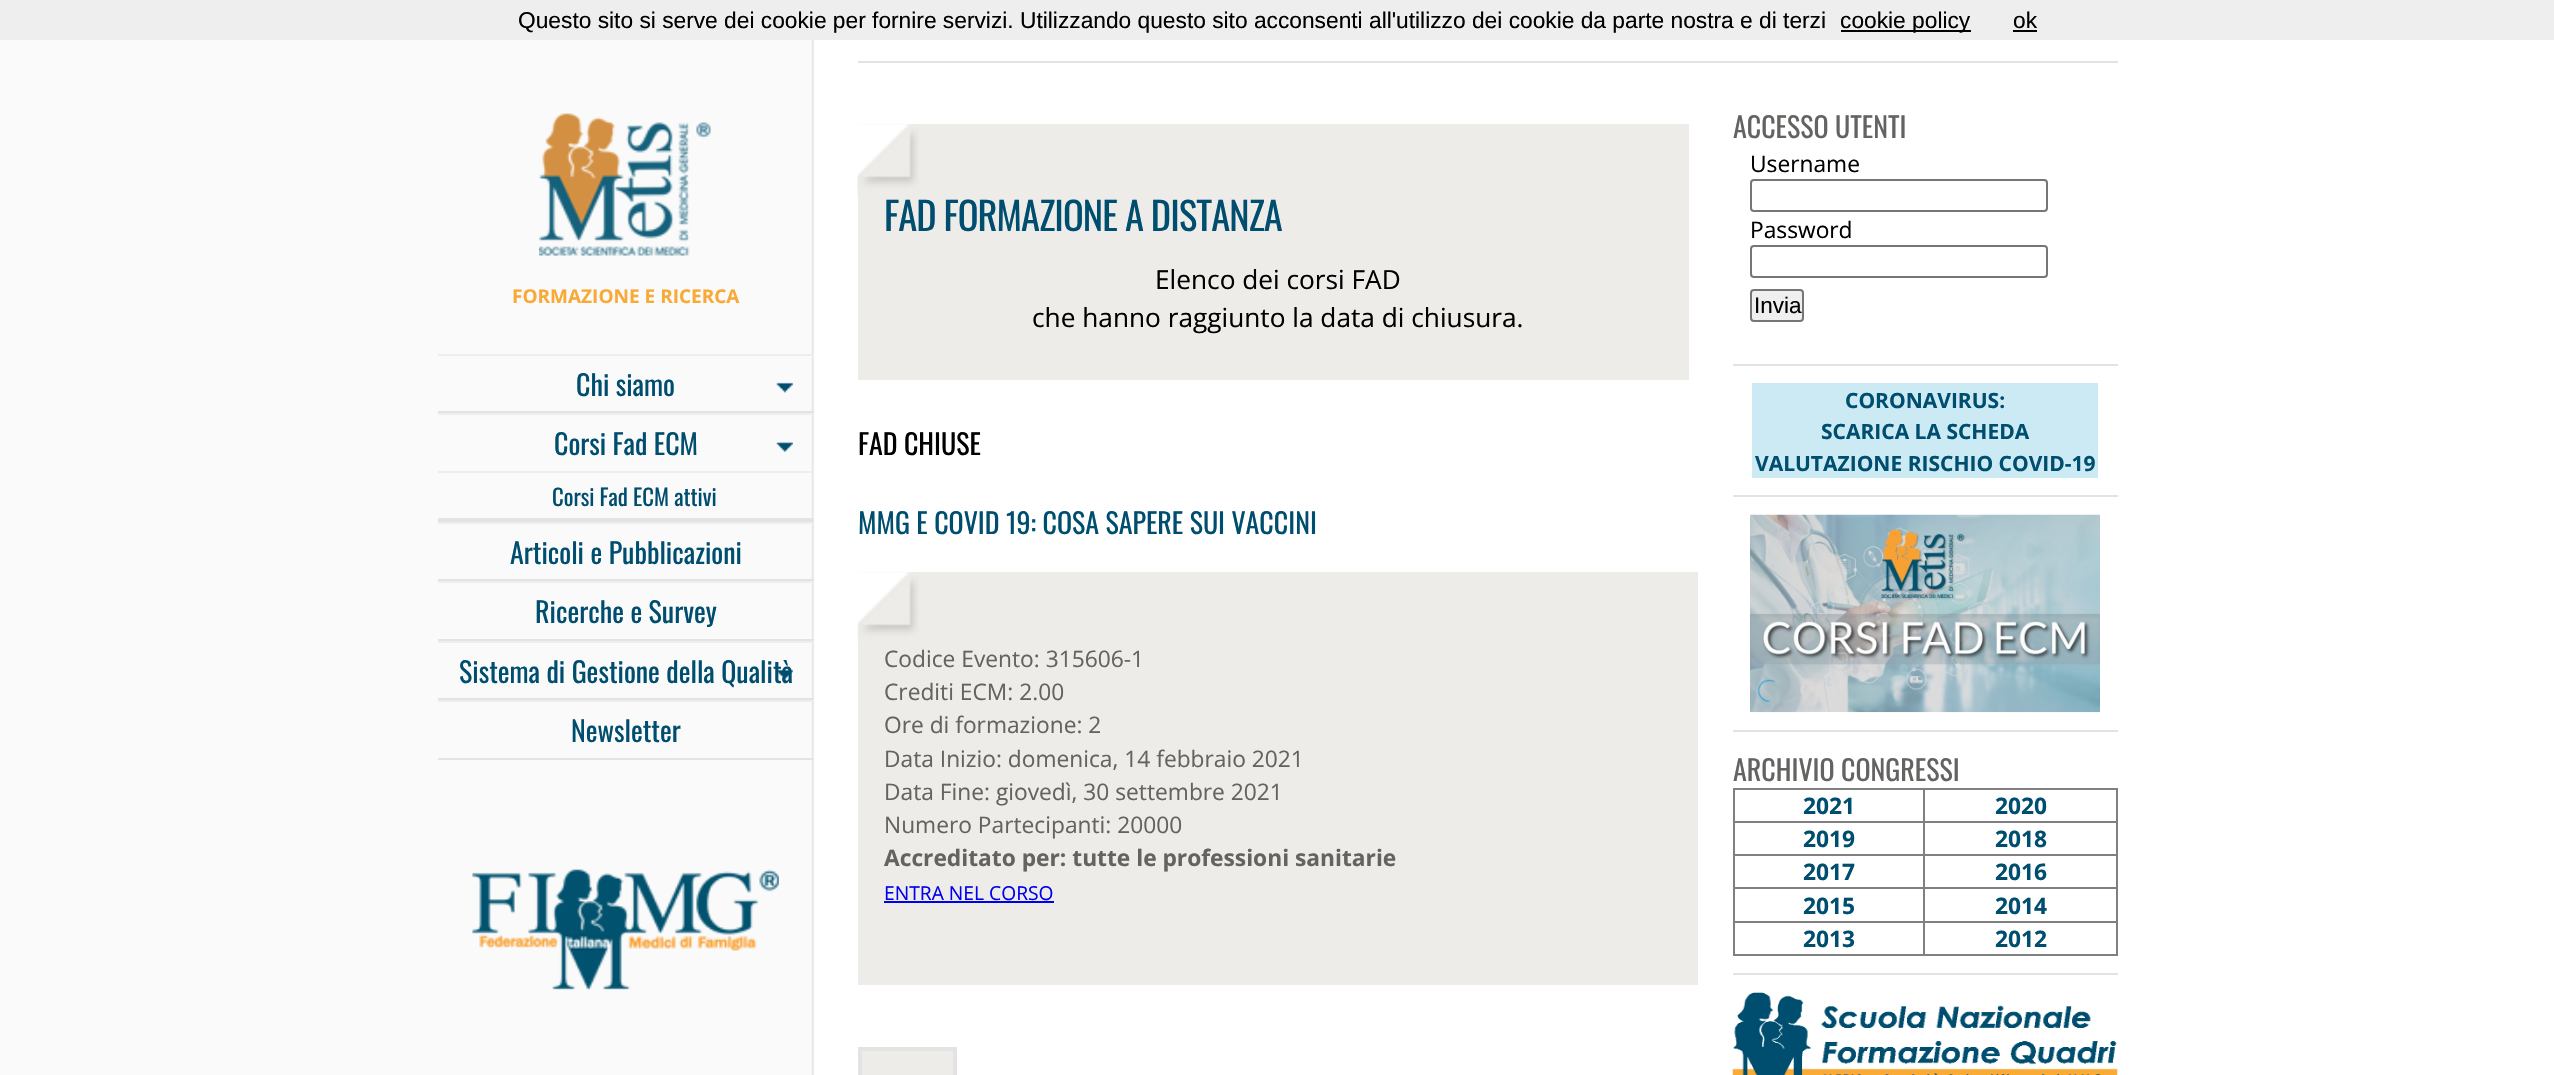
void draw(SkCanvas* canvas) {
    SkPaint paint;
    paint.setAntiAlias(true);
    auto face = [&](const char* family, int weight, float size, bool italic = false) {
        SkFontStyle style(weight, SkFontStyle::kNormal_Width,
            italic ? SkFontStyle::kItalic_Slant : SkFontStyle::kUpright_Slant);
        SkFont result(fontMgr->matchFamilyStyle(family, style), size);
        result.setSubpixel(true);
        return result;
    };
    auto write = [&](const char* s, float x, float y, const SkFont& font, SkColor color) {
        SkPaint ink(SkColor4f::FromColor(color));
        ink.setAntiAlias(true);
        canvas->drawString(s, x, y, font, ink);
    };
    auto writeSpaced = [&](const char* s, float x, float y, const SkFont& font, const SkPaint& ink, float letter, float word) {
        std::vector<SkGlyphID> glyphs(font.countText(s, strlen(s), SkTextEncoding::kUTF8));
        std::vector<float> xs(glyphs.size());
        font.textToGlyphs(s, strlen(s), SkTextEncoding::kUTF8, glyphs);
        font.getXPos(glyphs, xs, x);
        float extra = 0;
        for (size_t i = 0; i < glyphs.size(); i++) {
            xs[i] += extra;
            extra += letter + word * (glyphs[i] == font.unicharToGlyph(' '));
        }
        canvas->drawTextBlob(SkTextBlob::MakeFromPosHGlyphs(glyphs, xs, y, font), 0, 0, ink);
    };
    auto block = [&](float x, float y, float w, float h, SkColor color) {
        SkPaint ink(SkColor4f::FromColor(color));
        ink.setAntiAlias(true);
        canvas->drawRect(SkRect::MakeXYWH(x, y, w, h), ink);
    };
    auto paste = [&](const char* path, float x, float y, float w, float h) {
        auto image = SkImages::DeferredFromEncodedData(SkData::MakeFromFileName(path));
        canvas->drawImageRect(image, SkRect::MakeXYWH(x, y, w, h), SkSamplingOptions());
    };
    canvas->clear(SkColorSetRGB(250, 250, 250));
    block(0, 0, 2554, 40, SkColorSetRGB(238, 238, 238));
    auto kFont1 = face("Liberation Sans", 400, 22.75f);
    write("Questo sito si serve dei cookie per fornire servizi. Utilizzando questo sito acconsenti all'utilizzo dei cookie da parte nostra e di terzi", 518, 28, kFont1, SK_ColorBLACK);
    block(1841, 30, 130, 2, SK_ColorBLACK);
    write("cookie policy", 1840, 28, kFont1, SK_ColorBLACK);
    write("ok", 2013, 28, kFont1, SK_ColorBLACK);
    block(2013, 30, 24, 2, SK_ColorBLACK);
    paste("pic1.png", 811, 40, 1743, 1035);
    paste("pic2.png", 539, 113, 172, 143);
    auto kFont2 = face("Open Sans", 700, 19);
    write("FORMAZIONE E RICERCA", 512, 303, kFont2, SkColorSetRGB(248, 170, 54));
    block(438, 354, 376, 2, SkColorSetRGB(238, 238, 238));
    block(438, 411, 376, 2, SkColorSetRGB(227, 227, 227));
    auto kFont3 = face("Oswald", 400, 28);
    write("Chi siamo", 576, 396, kFont3, SkColorSetRGB(0, 78, 111));
    paste("pic3.png", 776, 382, 17, 11);
    block(438, 413, 376, 2, SkColorSetRGB(238, 238, 238));
    block(438, 518, 376, 4, SkColorSetRGB(227, 227, 227));
    write("Corsi Fad ECM", 554, 455, kFont3, SkColorSetRGB(0, 78, 111));
    paste("pic4.png", 776, 442, 17, 10);
    block(438, 471, 376, 2, SkColorSetRGB(238, 238, 238));
    auto kFont4 = face("Oswald", 400, 22.75f);
    write("Corsi Fad ECM attivi", 552, 506, kFont4, SkColorSetRGB(0, 78, 111));
    block(438, 522, 376, 2, SkColorSetRGB(238, 238, 238));
    block(438, 579, 376, 2, SkColorSetRGB(227, 227, 227));
    write("Articoli e Pubblicazioni", 510, 564, kFont3, SkColorSetRGB(0, 78, 111));
    block(438, 581, 376, 2, SkColorSetRGB(238, 238, 238));
    block(438, 639, 376, 2, SkColorSetRGB(227, 227, 227));
    write("Ricerche e Survey", 535, 623, kFont3, SkColorSetRGB(0, 78, 111));
    block(438, 641, 376, 2, SkColorSetRGB(238, 238, 238));
    block(438, 698, 376, 2, SkColorSetRGB(227, 227, 227));
    write("Sistema di Gestione della Qualità", 459, 683, kFont3, SkColorSetRGB(0, 78, 111));
    paste("pic5.png", 777, 669, 16, 11);
    block(438, 700, 376, 2, SkColorSetRGB(238, 238, 238));
    block(438, 758, 376, 2, SkColorSetRGB(227, 227, 227));
    write("Newsletter", 571, 742, kFont3, SkColorSetRGB(0, 78, 111));
    paste("pic6.png", 472, 869, 307, 121);
    block(858, 61, 1260, 2, SkColorSetRGB(227, 227, 227));
    block(858, 124, 831, 256, SkColorSetRGB(237, 236, 232));
    paste("pic7.png", 857, 124, 62, 70);
    auto kFont5 = face("Oswald", 400, 38.5f);
    paint.setColor(SkColorSetRGB(0, 78, 111));
    writeSpaced("FAD FORMAZIONE A DISTANZA", 884, 231, kFont5, paint, -0.9f, 0);
    auto kFont6 = face("Open Sans", 400, 26.25f);
    write("Elenco dei corsi FAD", 1155, 289, kFont6, SK_ColorBLACK);
    write("che hanno raggiunto la data di chiusura.", 1032, 327, kFont6, SK_ColorBLACK);
    write("FAD CHIUSE", 858, 455, kFont3, SK_ColorBLACK);
    write("MMG E COVID 19: COSA SAPERE SUI VACCINI", 858, 534, kFont3, SkColorSetRGB(0, 78, 111));
    block(858, 572, 840, 413, SkColorSetRGB(237, 236, 232));
    paste("pic8.png", 857, 572, 62, 70);
    auto kFont7 = face("Open Sans", 400, 22.75f);
    write("Codice Evento: 315606-1", 884, 667, kFont7, SkColorSetRGB(100, 99, 97));
    write("Crediti ECM: 2.00", 884, 700, kFont7, SkColorSetRGB(100, 99, 97));
    write("Ore di formazione: 2", 884, 733, kFont7, SkColorSetRGB(100, 99, 97));
    write("Data Inizio: domenica, 14 febbraio 2021", 884, 767, kFont7, SkColorSetRGB(100, 99, 97));
    write("Data Fine: giovedì, 30 settembre 2021", 884, 800, kFont7, SkColorSetRGB(100, 99, 97));
    write("Numero Partecipanti: 20000", 884, 833, kFont7, SkColorSetRGB(100, 99, 97));
    auto kFont8 = face("Open Sans", 700, 22.75f);
    write("Accreditato per: tutte le professioni sanitarie", 884, 866, kFont8, SkColorSetRGB(100, 99, 97));
    auto kFont9 = face("Open Sans", 400, 19.25f);
    write("ENTRA NEL CORSO", 884, 900, kFont9, SkColorSetRGB(0, 0, 238));
    block(884, 901, 170, 2, SkColorSetRGB(0, 0, 238));
    paint.setColor(SkColorSetRGB(237, 236, 232));
    canvas->drawRect(SkRect::MakeXYWH(860, 1049, 95, 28), paint);
    paint.setStyle(SkPaint::kStroke_Style);
    paint.setStrokeWidth(4);
    paint.setColor(SkColorSetRGB(227, 227, 227));
    canvas->drawRect(SkRect::MakeXYWH(860, 1049, 95, 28), paint);
    block(1733, 364, 385, 2, SkColorSetRGB(227, 227, 227));
    write("ACCESSO UTENTI", 1733, 138, kFont3, SkColorSetRGB(100, 99, 97));
    write("Username", 1750, 172, kFont7, SK_ColorBLACK);
    paint.setStrokeWidth(2);
    paint.setColor(SkColorSetRGB(118, 118, 118));
    canvas->drawRoundRect(SkRect::MakeXYWH(1751, 180, 296, 31), 3, 3, paint);
    write("Password", 1750, 238, kFont7, SK_ColorBLACK);
    canvas->drawRoundRect(SkRect::MakeXYWH(1751, 246, 296, 31), 3, 3, paint);
    paint.setStyle(SkPaint::kFill_Style);
    paint.setColor(SkColorSetRGB(239, 239, 239));
    canvas->drawRoundRect(SkRect::MakeXYWH(1751, 290, 52, 31), 3, 3, paint);
    paint.setStyle(SkPaint::kStroke_Style);
    paint.setColor(SkColorSetRGB(118, 118, 118));
    canvas->drawRoundRect(SkRect::MakeXYWH(1751, 290, 52, 31), 3, 3, paint);
    auto kFont10 = face("Liberation Sans", 400, 22.5f);
    write("Invia", 1754, 313, kFont10, SK_ColorBLACK);
    block(1733, 495, 385, 2, SkColorSetRGB(227, 227, 227));
    block(1752, 383, 346, 95, SkColorSetRGB(204, 234, 244));
    auto kFont11 = face("Open Sans", 700, 21);
    write("CORONAVIRUS:", 1845, 408, kFont11, SkColorSetRGB(0, 78, 111));
    write("SCARICA LA SCHEDA", 1821, 439, kFont11, SkColorSetRGB(0, 78, 111));
    write("VALUTAZIONE RISCHIO COVID-19", 1755, 471, kFont11, SkColorSetRGB(0, 78, 111));
    block(1733, 730, 385, 2, SkColorSetRGB(227, 227, 227));
    paste("pic9.png", 1750, 514, 350, 199);
    block(1733, 973, 385, 2, SkColorSetRGB(227, 227, 227));
    write("ARCHIVIO CONGRESSI", 1733, 781, kFont3, SkColorSetRGB(100, 99, 97));
    block(1733, 788, 385, 2, SkColorSetRGB(128, 128, 128));
    block(2116, 788, 2, 168, SkColorSetRGB(128, 128, 128));
    block(1733, 954, 385, 2, SkColorSetRGB(128, 128, 128));
    block(1733, 788, 2, 168, SkColorSetRGB(128, 128, 128));
    write("2021", 1803, 814, kFont8, SkColorSetRGB(0, 78, 111));
    block(1923, 821, 195, 2, SkColorSetRGB(128, 128, 128));
    block(1923, 854, 195, 2, SkColorSetRGB(128, 128, 128));
    block(1923, 887, 195, 2, SkColorSetRGB(128, 128, 128));
    block(1923, 921, 195, 2, SkColorSetRGB(128, 128, 128));
    block(1923, 921, 2, 35, SkColorSetRGB(128, 128, 128));
    block(1733, 921, 192, 2, SkColorSetRGB(128, 128, 128));
    block(1923, 887, 2, 35, SkColorSetRGB(128, 128, 128));
    block(1733, 887, 192, 2, SkColorSetRGB(128, 128, 128));
    block(1923, 854, 2, 35, SkColorSetRGB(128, 128, 128));
    block(1733, 854, 192, 2, SkColorSetRGB(128, 128, 128));
    block(1923, 821, 2, 35, SkColorSetRGB(128, 128, 128));
    block(1733, 821, 192, 2, SkColorSetRGB(128, 128, 128));
    block(1923, 788, 2, 35, SkColorSetRGB(128, 128, 128));
    write("2020", 1995, 814, kFont8, SkColorSetRGB(0, 78, 111));
    write("2019", 1803, 847, kFont8, SkColorSetRGB(0, 78, 111));
    write("2018", 1995, 847, kFont8, SkColorSetRGB(0, 78, 111));
    write("2017", 1803, 880, kFont8, SkColorSetRGB(0, 78, 111));
    write("2016", 1995, 880, kFont8, SkColorSetRGB(0, 78, 111));
    write("2015", 1803, 914, kFont8, SkColorSetRGB(0, 78, 111));
    write("2014", 1995, 914, kFont8, SkColorSetRGB(0, 78, 111));
    write("2013", 1803, 947, kFont8, SkColorSetRGB(0, 78, 111));
    write("2012", 1995, 947, kFont8, SkColorSetRGB(0, 78, 111));
    paste("pic10.png", 1732, 992, 386, 83);
}
